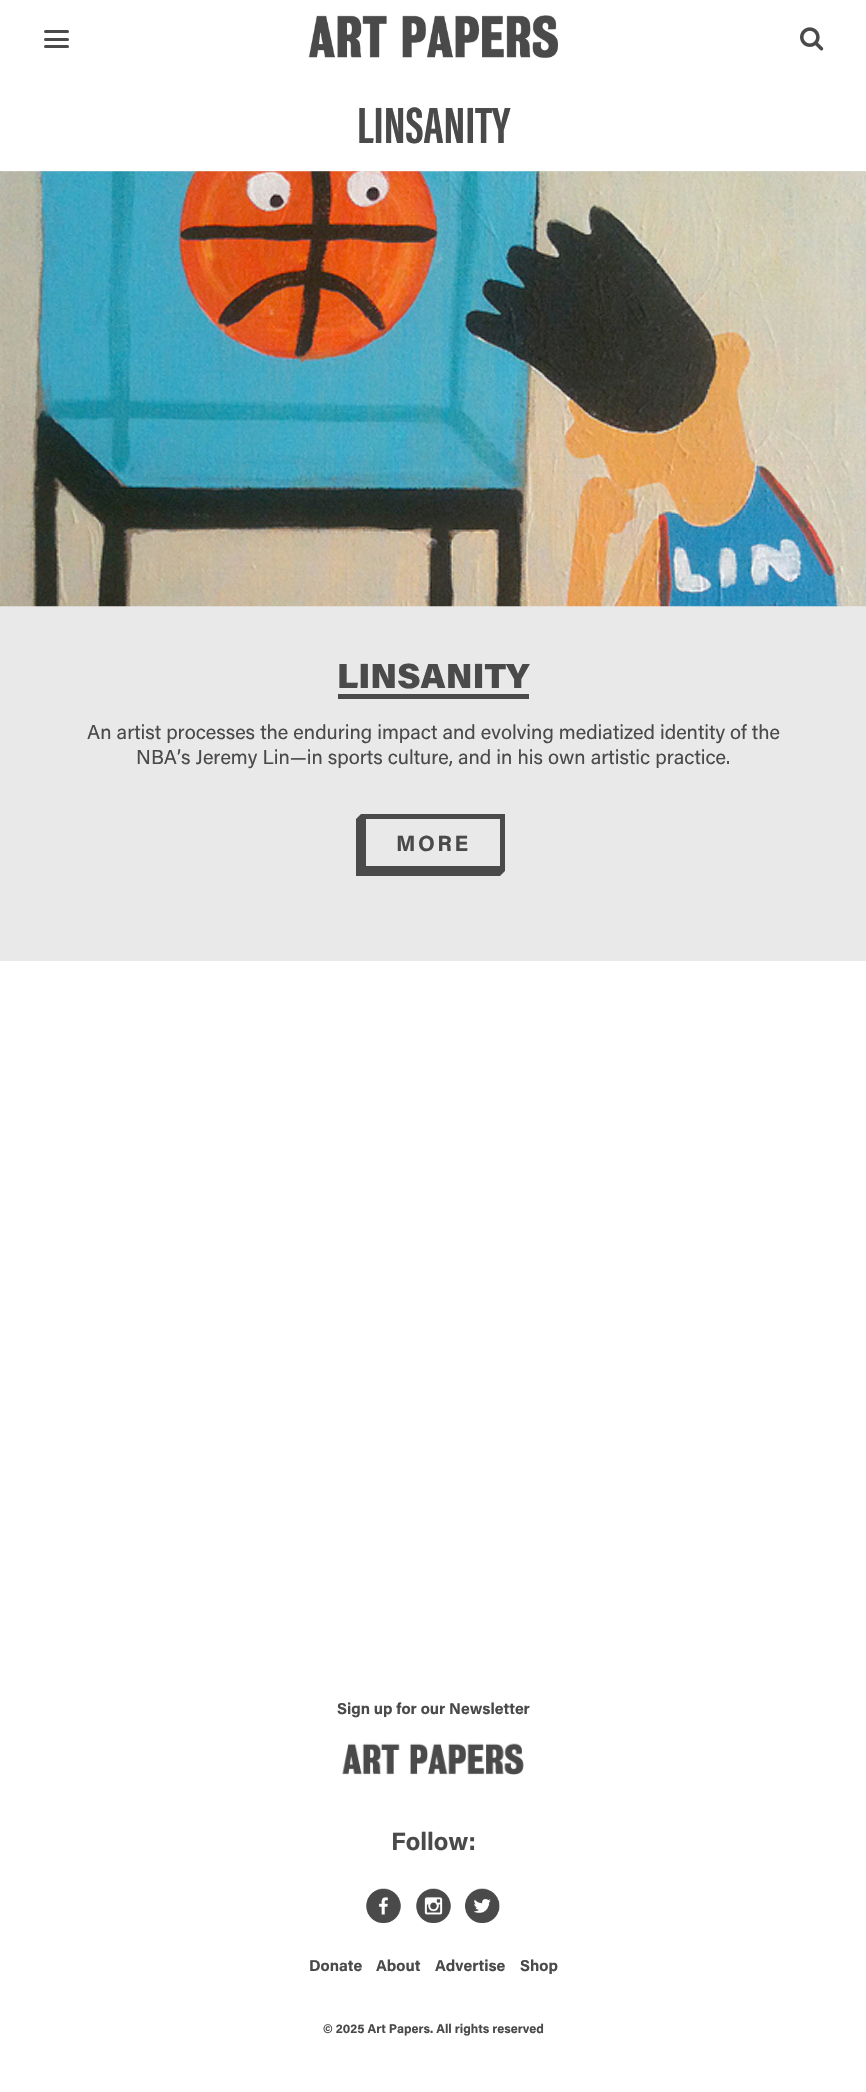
void draw(SkCanvas* canvas) {
    SkPaint paint;
    paint.setAntiAlias(true);
    auto face = [&](const char* family, int weight, float size, bool italic = false) {
        SkFontStyle style(weight, SkFontStyle::kNormal_Width,
            italic ? SkFontStyle::kItalic_Slant : SkFontStyle::kUpright_Slant);
        SkFont result(fontMgr->matchFamilyStyle(family, style), size);
        result.setSubpixel(true);
        return result;
    };
    auto write = [&](const char* s, float x, float y, const SkFont& font, SkColor color) {
        SkPaint ink(SkColor4f::FromColor(color));
        ink.setAntiAlias(true);
        canvas->drawString(s, x, y, font, ink);
    };
    auto writeSpaced = [&](const char* s, float x, float y, const SkFont& font, const SkPaint& ink, float letter, float word) {
        std::vector<SkGlyphID> glyphs(font.countText(s, strlen(s), SkTextEncoding::kUTF8));
        std::vector<float> xs(glyphs.size());
        font.textToGlyphs(s, strlen(s), SkTextEncoding::kUTF8, glyphs);
        font.getXPos(glyphs, xs, x);
        float extra = 0;
        for (size_t i = 0; i < glyphs.size(); i++) {
            xs[i] += extra;
            extra += letter + word * (glyphs[i] == font.unicharToGlyph(' '));
        }
        canvas->drawTextBlob(SkTextBlob::MakeFromPosHGlyphs(glyphs, xs, y, font), 0, 0, ink);
    };
    auto block = [&](float x, float y, float w, float h, SkColor color) {
        SkPaint ink(SkColor4f::FromColor(color));
        ink.setAntiAlias(true);
        canvas->drawRect(SkRect::MakeXYWH(x, y, w, h), ink);
    };
    auto card = [&](float x, float y, float w, float h, float radius, SkColor color) {
        SkPaint ink(SkColor4f::FromColor(color));
        ink.setAntiAlias(true);
        canvas->drawRoundRect(SkRect::MakeXYWH(x, y, w, h), radius, radius, ink);
    };
    auto paste = [&](const char* path, float x, float y, float w, float h) {
        auto image = SkImages::DeferredFromEncodedData(SkData::MakeFromFileName(path));
        canvas->drawImageRect(image, SkRect::MakeXYWH(x, y, w, h), SkSamplingOptions());
    };
    canvas->clear(SK_ColorWHITE);
    card(44, 38, 25, 3, 1.5f, SkColorSetRGB(74, 74, 74));
    card(44, 30, 25, 3, 1.5f, SkColorSetRGB(74, 74, 74));
    card(44, 45, 25, 3, 1.5f, SkColorSetRGB(74, 74, 74));
    paste("pic1.png", 308, 15, 250, 43);
    paste("pic2.png", 800, 27, 24, 24);
    auto kFont1 = face("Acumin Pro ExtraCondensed", 700, 52.5f);
    write("LINSANITY", 357, 143, kFont1, SkColorSetRGB(74, 74, 74));
    block(0, 171, 866, 790, SkColorSetRGB(233, 233, 233));
    paste("pic3.png", 0, 171, 866, 436);
    auto kFont2 = face("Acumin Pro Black", 900, 35);
    write("LINSANITY", 337, 688, kFont2, SkColorSetRGB(74, 74, 74));
    block(338, 694, 191, 5, SkColorSetRGB(74, 74, 74));
    auto kFont3 = face("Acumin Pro", 400, 20);
    write("An artist processes the enduring impact and evolving mediatized identity of the", 87, 739, kFont3, SkColorSetRGB(74, 74, 74));
    write("NBA’s Jeremy Lin—in sports culture, and in his own artistic practice.", 136, 764, kFont3, SkColorSetRGB(74, 74, 74));
    paint.setStyle(SkPaint::kStroke_Style);
    paint.setStrokeWidth(5);
    paint.setColor(SkColorSetRGB(74, 74, 74));
    canvas->drawRect(SkRect::MakeXYWH(363.5f, 816.5f, 139, 52), paint);
    paint.setStyle(SkPaint::kFill_Style);
    canvas->drawPath(SkPathBuilder().moveTo(361, 814).lineTo(361, 876).lineTo(356, 876).lineTo(356, 819).close().detach(), paint);
    auto kFont4 = face("Acumin Pro", 700, 22);
    writeSpaced("MORE", 396, 851, kFont4, paint, 2.5f, 0);
    canvas->drawPath(SkPathBuilder().moveTo(356, 871).lineTo(505, 871).lineTo(500, 876).lineTo(356, 876).close().detach(), paint);
    auto kFont5 = face("Acumin Pro", 700, 15.75f);
    write("Sign up for our Newsletter", 337, 1714, kFont5, SkColorSetRGB(74, 74, 74));
    paste("pic4.png", 342, 1743, 182, 32);
    auto kFont6 = face("Acumin Pro", 700, 25);
    write("Follow:", 391, 1850, kFont6, SkColorSetRGB(74, 74, 74));
    paste("pic5.png", 366, 1888, 35, 35);
    paste("pic6.png", 416, 1888, 35, 35);
    paste("pic7.png", 465, 1888, 35, 35);
    write("Donate", 309, 1971, kFont5, SkColorSetRGB(74, 74, 74));
    write("About", 376, 1971, kFont5, SkColorSetRGB(74, 74, 74));
    write("Advertise", 435, 1971, kFont5, SkColorSetRGB(74, 74, 74));
    write("Shop", 520, 1971, kFont5, SkColorSetRGB(74, 74, 74));
    auto kFont7 = face("Acumin Pro", 700, 12.6f);
    write("© 2025 Art Papers. All rights reserved", 323, 2033, kFont7, SkColorSetRGB(74, 74, 74));
}
